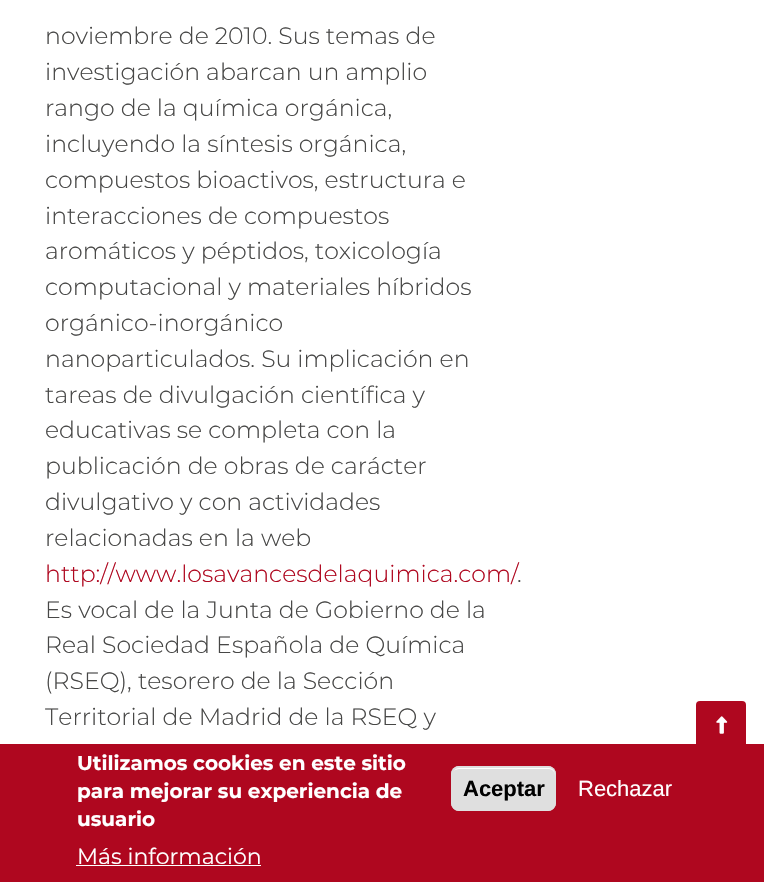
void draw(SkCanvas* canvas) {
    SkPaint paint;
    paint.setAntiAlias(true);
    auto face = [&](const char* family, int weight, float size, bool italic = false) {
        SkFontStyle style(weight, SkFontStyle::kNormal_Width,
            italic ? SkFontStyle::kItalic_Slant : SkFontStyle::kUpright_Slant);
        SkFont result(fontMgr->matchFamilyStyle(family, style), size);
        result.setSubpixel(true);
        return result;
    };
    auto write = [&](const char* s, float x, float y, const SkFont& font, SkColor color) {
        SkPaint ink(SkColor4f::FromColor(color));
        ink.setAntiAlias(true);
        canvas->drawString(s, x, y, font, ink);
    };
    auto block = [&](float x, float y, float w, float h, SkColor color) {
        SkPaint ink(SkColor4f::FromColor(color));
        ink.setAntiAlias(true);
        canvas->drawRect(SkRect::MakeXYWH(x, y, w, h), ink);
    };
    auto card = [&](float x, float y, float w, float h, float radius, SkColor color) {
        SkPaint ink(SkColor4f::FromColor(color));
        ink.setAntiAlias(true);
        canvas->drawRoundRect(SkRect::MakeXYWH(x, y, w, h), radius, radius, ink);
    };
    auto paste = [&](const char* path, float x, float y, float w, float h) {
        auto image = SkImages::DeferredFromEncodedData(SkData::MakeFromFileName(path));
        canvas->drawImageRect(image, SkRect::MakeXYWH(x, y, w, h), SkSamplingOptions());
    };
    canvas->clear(SK_ColorWHITE);
    auto kFont1 = face("Montserrat", 300, 23.6f);
    write("noviembre de 2010. Sus temas de", 45, 44, kFont1, SkColorSetRGB(71, 71, 70));
    write("investigación abarcan un amplio", 45, 80, kFont1, SkColorSetRGB(71, 71, 70));
    write("rango de la química orgánica,", 45, 116, kFont1, SkColorSetRGB(71, 71, 70));
    write("incluyendo la síntesis orgánica,", 45, 152, kFont1, SkColorSetRGB(71, 71, 70));
    write("compuestos bioactivos, estructura e", 45, 188, kFont1, SkColorSetRGB(71, 71, 70));
    write("interacciones de compuestos", 45, 224, kFont1, SkColorSetRGB(71, 71, 70));
    write("aromáticos y péptidos, toxicología", 45, 259, kFont1, SkColorSetRGB(71, 71, 70));
    write("computacional y materiales híbridos", 45, 295, kFont1, SkColorSetRGB(71, 71, 70));
    write("orgánico-inorgánico", 45, 331, kFont1, SkColorSetRGB(71, 71, 70));
    write("nanoparticulados. Su implicación en", 45, 367, kFont1, SkColorSetRGB(71, 71, 70));
    write("tareas de divulgación científica y", 45, 403, kFont1, SkColorSetRGB(71, 71, 70));
    write("educativas se completa con la", 45, 438, kFont1, SkColorSetRGB(71, 71, 70));
    write("publicación de obras de carácter", 45, 474, kFont1, SkColorSetRGB(71, 71, 70));
    write("divulgativo y con actividades", 45, 510, kFont1, SkColorSetRGB(71, 71, 70));
    write("relacionadas en la web", 45, 546, kFont1, SkColorSetRGB(71, 71, 70));
    write("http://www.losavancesdelaquimica.com/", 45, 582, kFont1, SkColorSetRGB(175, 7, 31));
    write(".", 517, 582, kFont1, SkColorSetRGB(71, 71, 70));
    write("Es vocal de la Junta de Gobierno de la", 45, 618, kFont1, SkColorSetRGB(71, 71, 70));
    write("Real Sociedad Española de Química", 45, 653, kFont1, SkColorSetRGB(71, 71, 70));
    write("(RSEQ), tesorero de la Sección", 45, 689, kFont1, SkColorSetRGB(71, 71, 70));
    write("Territorial de Madrid de la RSEQ y", 45, 725, kFont1, SkColorSetRGB(71, 71, 70));
    card(696, 701, 50, 50, 4, SkColorSetRGB(175, 7, 31));
    paste("pic1.png", 716, 716, 12, 18);
    block(0, 744, 764, 138, SkColorSetRGB(175, 7, 31));
    auto kFont2 = face("Montserrat", 700, 20);
    write("Utilizamos cookies en este sitio", 77, 770, kFont2, SK_ColorWHITE);
    write("para mejorar su experiencia de", 77, 798, kFont2, SK_ColorWHITE);
    write("usuario", 77, 826, kFont2, SK_ColorWHITE);
    auto kFont3 = face("Montserrat", 400, 22);
    write("Más información", 77, 864, kFont3, SK_ColorWHITE);
    block(76, 865, 185, 1, SK_ColorWHITE);
    card(451, 766, 105, 45, 8, SkColorSetRGB(223, 223, 223));
    paint.setColor(SK_ColorWHITE);
    canvas->drawPath(SkPathBuilder().moveTo(459, 769).lineTo(549, 769).cubicTo(552, 769, 555, 772, 555, 775).lineTo(555, 774).cubicTo(555, 771, 552, 768, 549, 768).lineTo(459, 768).cubicTo(457, 768, 455, 769, 454, 771).cubicTo(455, 770, 457, 769, 459, 769).close().detach(), paint);
    paint.setStyle(SkPaint::kStroke_Style);
    paint.setStrokeWidth(1);
    paint.setColor(SkColorSetRGB(223, 223, 223));
    canvas->drawRoundRect(SkRect::MakeXYWH(451.5f, 766.5f, 104, 44), 7.5f, 7.5f, paint);
    auto kFont4 = face("Liberation Sans", 700, 22);
    write("Aceptar", 463, 796, kFont4, SK_ColorBLACK);
    auto kFont5 = face("Liberation Sans", 400, 22);
    write("Rechazar", 578, 796, kFont5, SK_ColorWHITE);
}
